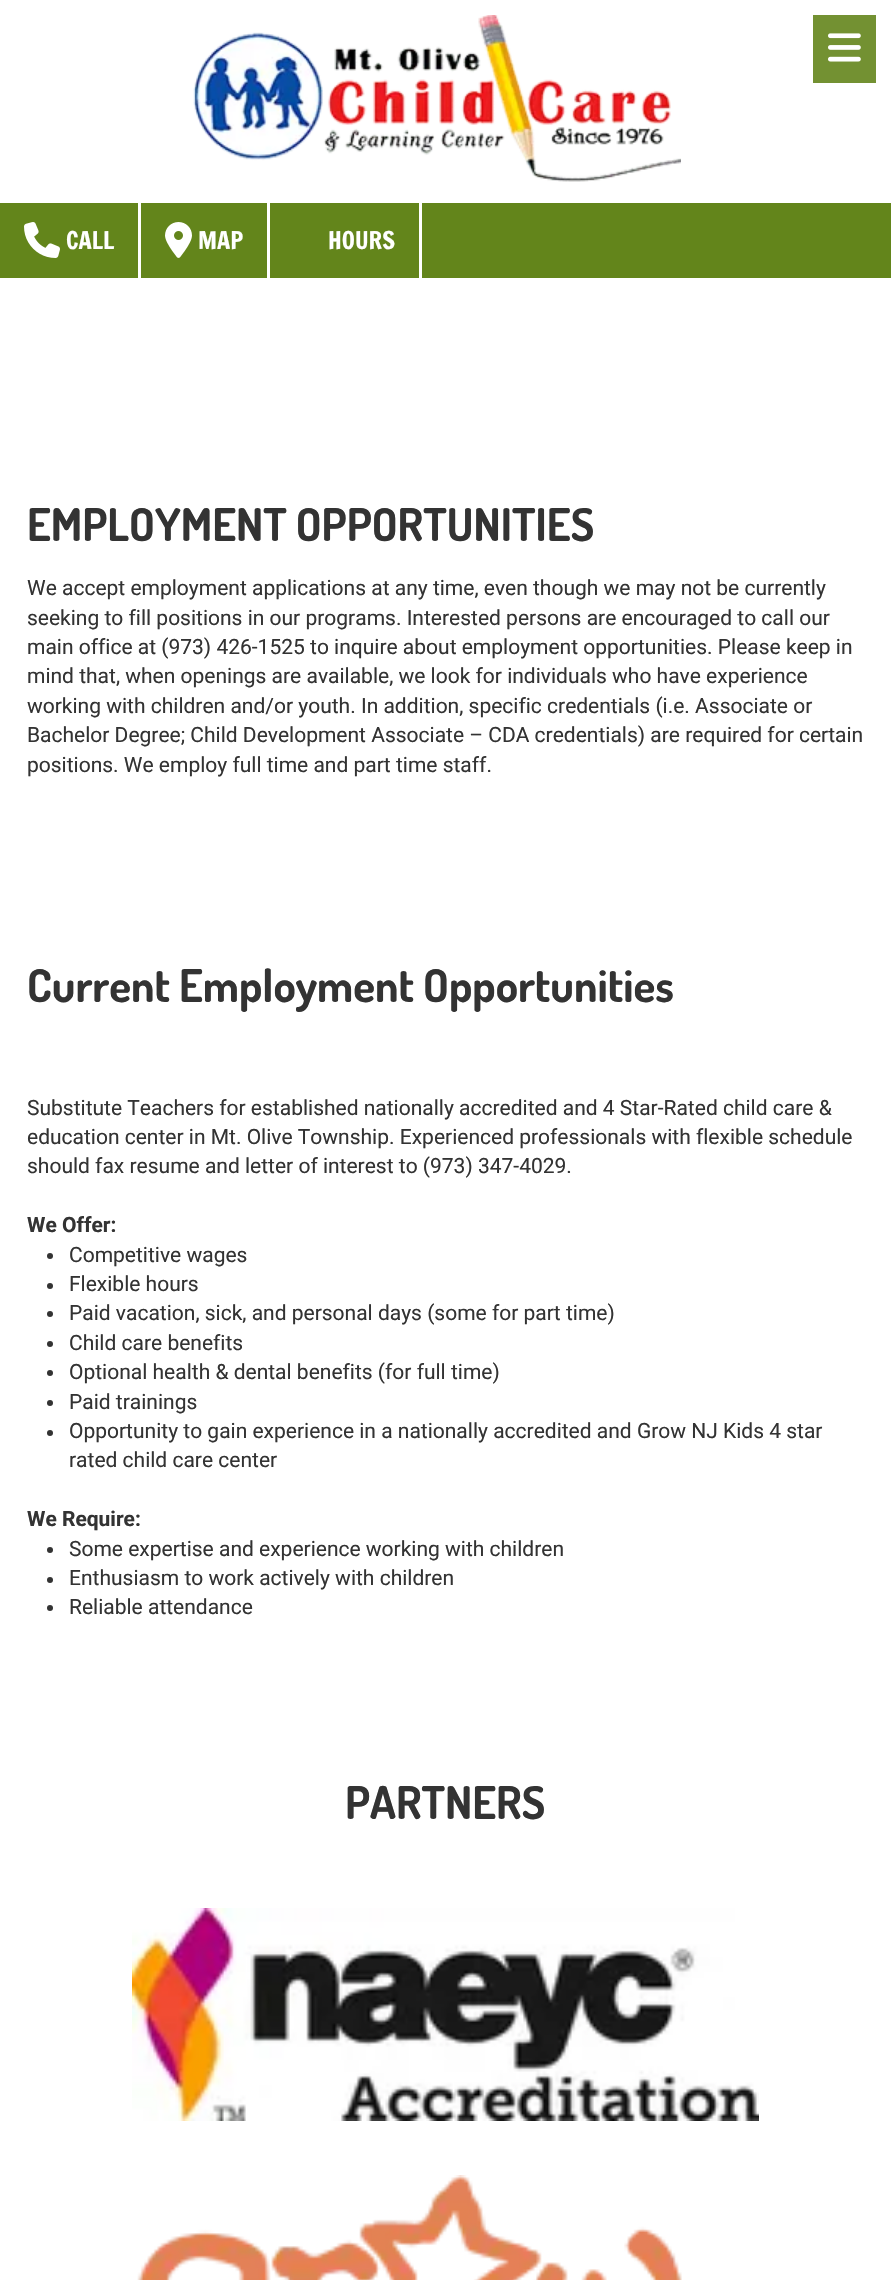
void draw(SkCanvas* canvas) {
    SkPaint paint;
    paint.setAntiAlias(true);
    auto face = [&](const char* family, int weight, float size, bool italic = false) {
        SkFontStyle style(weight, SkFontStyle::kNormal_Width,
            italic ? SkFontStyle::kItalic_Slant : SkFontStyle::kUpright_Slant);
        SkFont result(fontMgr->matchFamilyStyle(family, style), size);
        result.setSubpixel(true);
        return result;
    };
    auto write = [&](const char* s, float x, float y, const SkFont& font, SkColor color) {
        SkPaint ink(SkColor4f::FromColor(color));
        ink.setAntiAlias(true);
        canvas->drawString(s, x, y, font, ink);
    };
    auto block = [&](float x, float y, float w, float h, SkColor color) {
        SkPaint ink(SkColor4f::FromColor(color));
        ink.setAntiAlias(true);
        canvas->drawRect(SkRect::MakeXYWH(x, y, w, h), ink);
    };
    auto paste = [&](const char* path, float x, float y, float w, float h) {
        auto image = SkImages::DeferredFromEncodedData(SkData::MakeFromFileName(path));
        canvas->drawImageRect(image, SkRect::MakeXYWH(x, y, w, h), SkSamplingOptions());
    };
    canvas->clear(SK_ColorWHITE);
    paste("pic1.png", 193, 15, 488, 167);
    block(813, 15, 63, 68, SkColorSetRGB(115, 145, 50));
    paste("pic2.png", 828, 33, 33, 29);
    block(0, 203, 891, 75, SkColorSetRGB(99, 133, 27));
    block(138, 203, 3, 75, SK_ColorWHITE);
    paste("pic3.png", 24, 222, 36, 36);
    auto kFont1 = face("Francois One", 400, 24);
    write("CALL", 66, 249, kFont1, SK_ColorWHITE);
    block(267, 203, 3, 75, SK_ColorWHITE);
    paste("pic4.png", 165, 222, 27, 36);
    write("MAP", 198, 249, kFont1, SK_ColorWHITE);
    block(419, 203, 3, 75, SK_ColorWHITE);
    write("HOURS", 328, 249, kFont1, SK_ColorWHITE);
    auto kFont2 = face("Dosis", 700, 45);
    write("EMPLOYMENT OPPORTUNITIES", 27, 541, kFont2, SkColorSetRGB(51, 51, 51));
    auto kFont3 = face("Roboto", 400, 21);
    write("We accept employment applications at any time, even though we may not be currently", 27, 595, kFont3, SkColorSetRGB(51, 51, 51));
    write("seeking to fill positions in our programs. Interested persons are encouraged to call our", 27, 625, kFont3, SkColorSetRGB(51, 51, 51));
    write("main office at (973) 426-1525 to inquire about employment opportunities. Please keep in", 27, 654, kFont3, SkColorSetRGB(51, 51, 51));
    write("mind that, when openings are available, we look for individuals who have experience", 27, 683, kFont3, SkColorSetRGB(51, 51, 51));
    write("working with children and/or youth. In addition, specific credentials (i.e. Associate or", 27, 713, kFont3, SkColorSetRGB(51, 51, 51));
    write("Bachelor Degree; Child Development Associate – CDA credentials) are required for certain", 27, 742, kFont3, SkColorSetRGB(51, 51, 51));
    write("positions. We employ full time and part time staff.", 27, 772, kFont3, SkColorSetRGB(51, 51, 51));
    write("Current Employment Opportunities", 27, 1002, kFont2, SkColorSetRGB(51, 51, 51));
    write("Substitute Teachers for established nationally accredited and 4 Star-Rated child care &", 27, 1115, kFont3, SkColorSetRGB(51, 51, 51));
    write("education center in Mt. Olive Township. Experienced professionals with flexible schedule", 27, 1144, kFont3, SkColorSetRGB(51, 51, 51));
    write("should fax resume and letter of interest to (973) 347-4029.", 27, 1173, kFont3, SkColorSetRGB(51, 51, 51));
    auto kFont4 = face("Roboto", 700, 21);
    write("We Offer:", 27, 1232, kFont4, SkColorSetRGB(51, 51, 51));
    paint.setColor(SkColorSetRGB(51, 51, 51));
    canvas->drawCircle(50, 1256, 3, paint);
    write("Competitive wages", 69, 1262, kFont3, SkColorSetRGB(51, 51, 51));
    canvas->drawCircle(50, 1286, 3, paint);
    write("Flexible hours", 69, 1291, kFont3, SkColorSetRGB(51, 51, 51));
    canvas->drawCircle(50, 1314, 3, paint);
    write("Paid vacation, sick, and personal days (some for part time)", 69, 1320, kFont3, SkColorSetRGB(51, 51, 51));
    canvas->drawCircle(50, 1344, 3, paint);
    write("Child care benefits", 69, 1350, kFont3, SkColorSetRGB(51, 51, 51));
    canvas->drawCircle(50, 1373, 3, paint);
    write("Optional health & dental benefits (for full time)", 69, 1379, kFont3, SkColorSetRGB(51, 51, 51));
    canvas->drawCircle(50, 1403, 3, paint);
    write("Paid trainings", 69, 1409, kFont3, SkColorSetRGB(51, 51, 51));
    canvas->drawCircle(50, 1433, 3, paint);
    write("Opportunity to gain experience in a nationally accredited and Grow NJ Kids 4 star", 69, 1438, kFont3, SkColorSetRGB(51, 51, 51));
    write("rated child care center", 69, 1467, kFont3, SkColorSetRGB(51, 51, 51));
    write("We Require:", 27, 1526, kFont4, SkColorSetRGB(51, 51, 51));
    canvas->drawCircle(50, 1550, 3, paint);
    write("Some expertise and experience working with children", 69, 1556, kFont3, SkColorSetRGB(51, 51, 51));
    canvas->drawCircle(50, 1580, 3, paint);
    write("Enthusiasm to work actively with children", 69, 1585, kFont3, SkColorSetRGB(51, 51, 51));
    canvas->drawCircle(50, 1608, 3, paint);
    write("Reliable attendance", 69, 1614, kFont3, SkColorSetRGB(51, 51, 51));
    write("PARTNERS", 345, 1819, kFont2, SkColorSetRGB(51, 51, 51));
    paste("pic5.png", 132, 1908, 627, 213);
    paste("pic6.png", 137, 2175, 545, 105);
}
